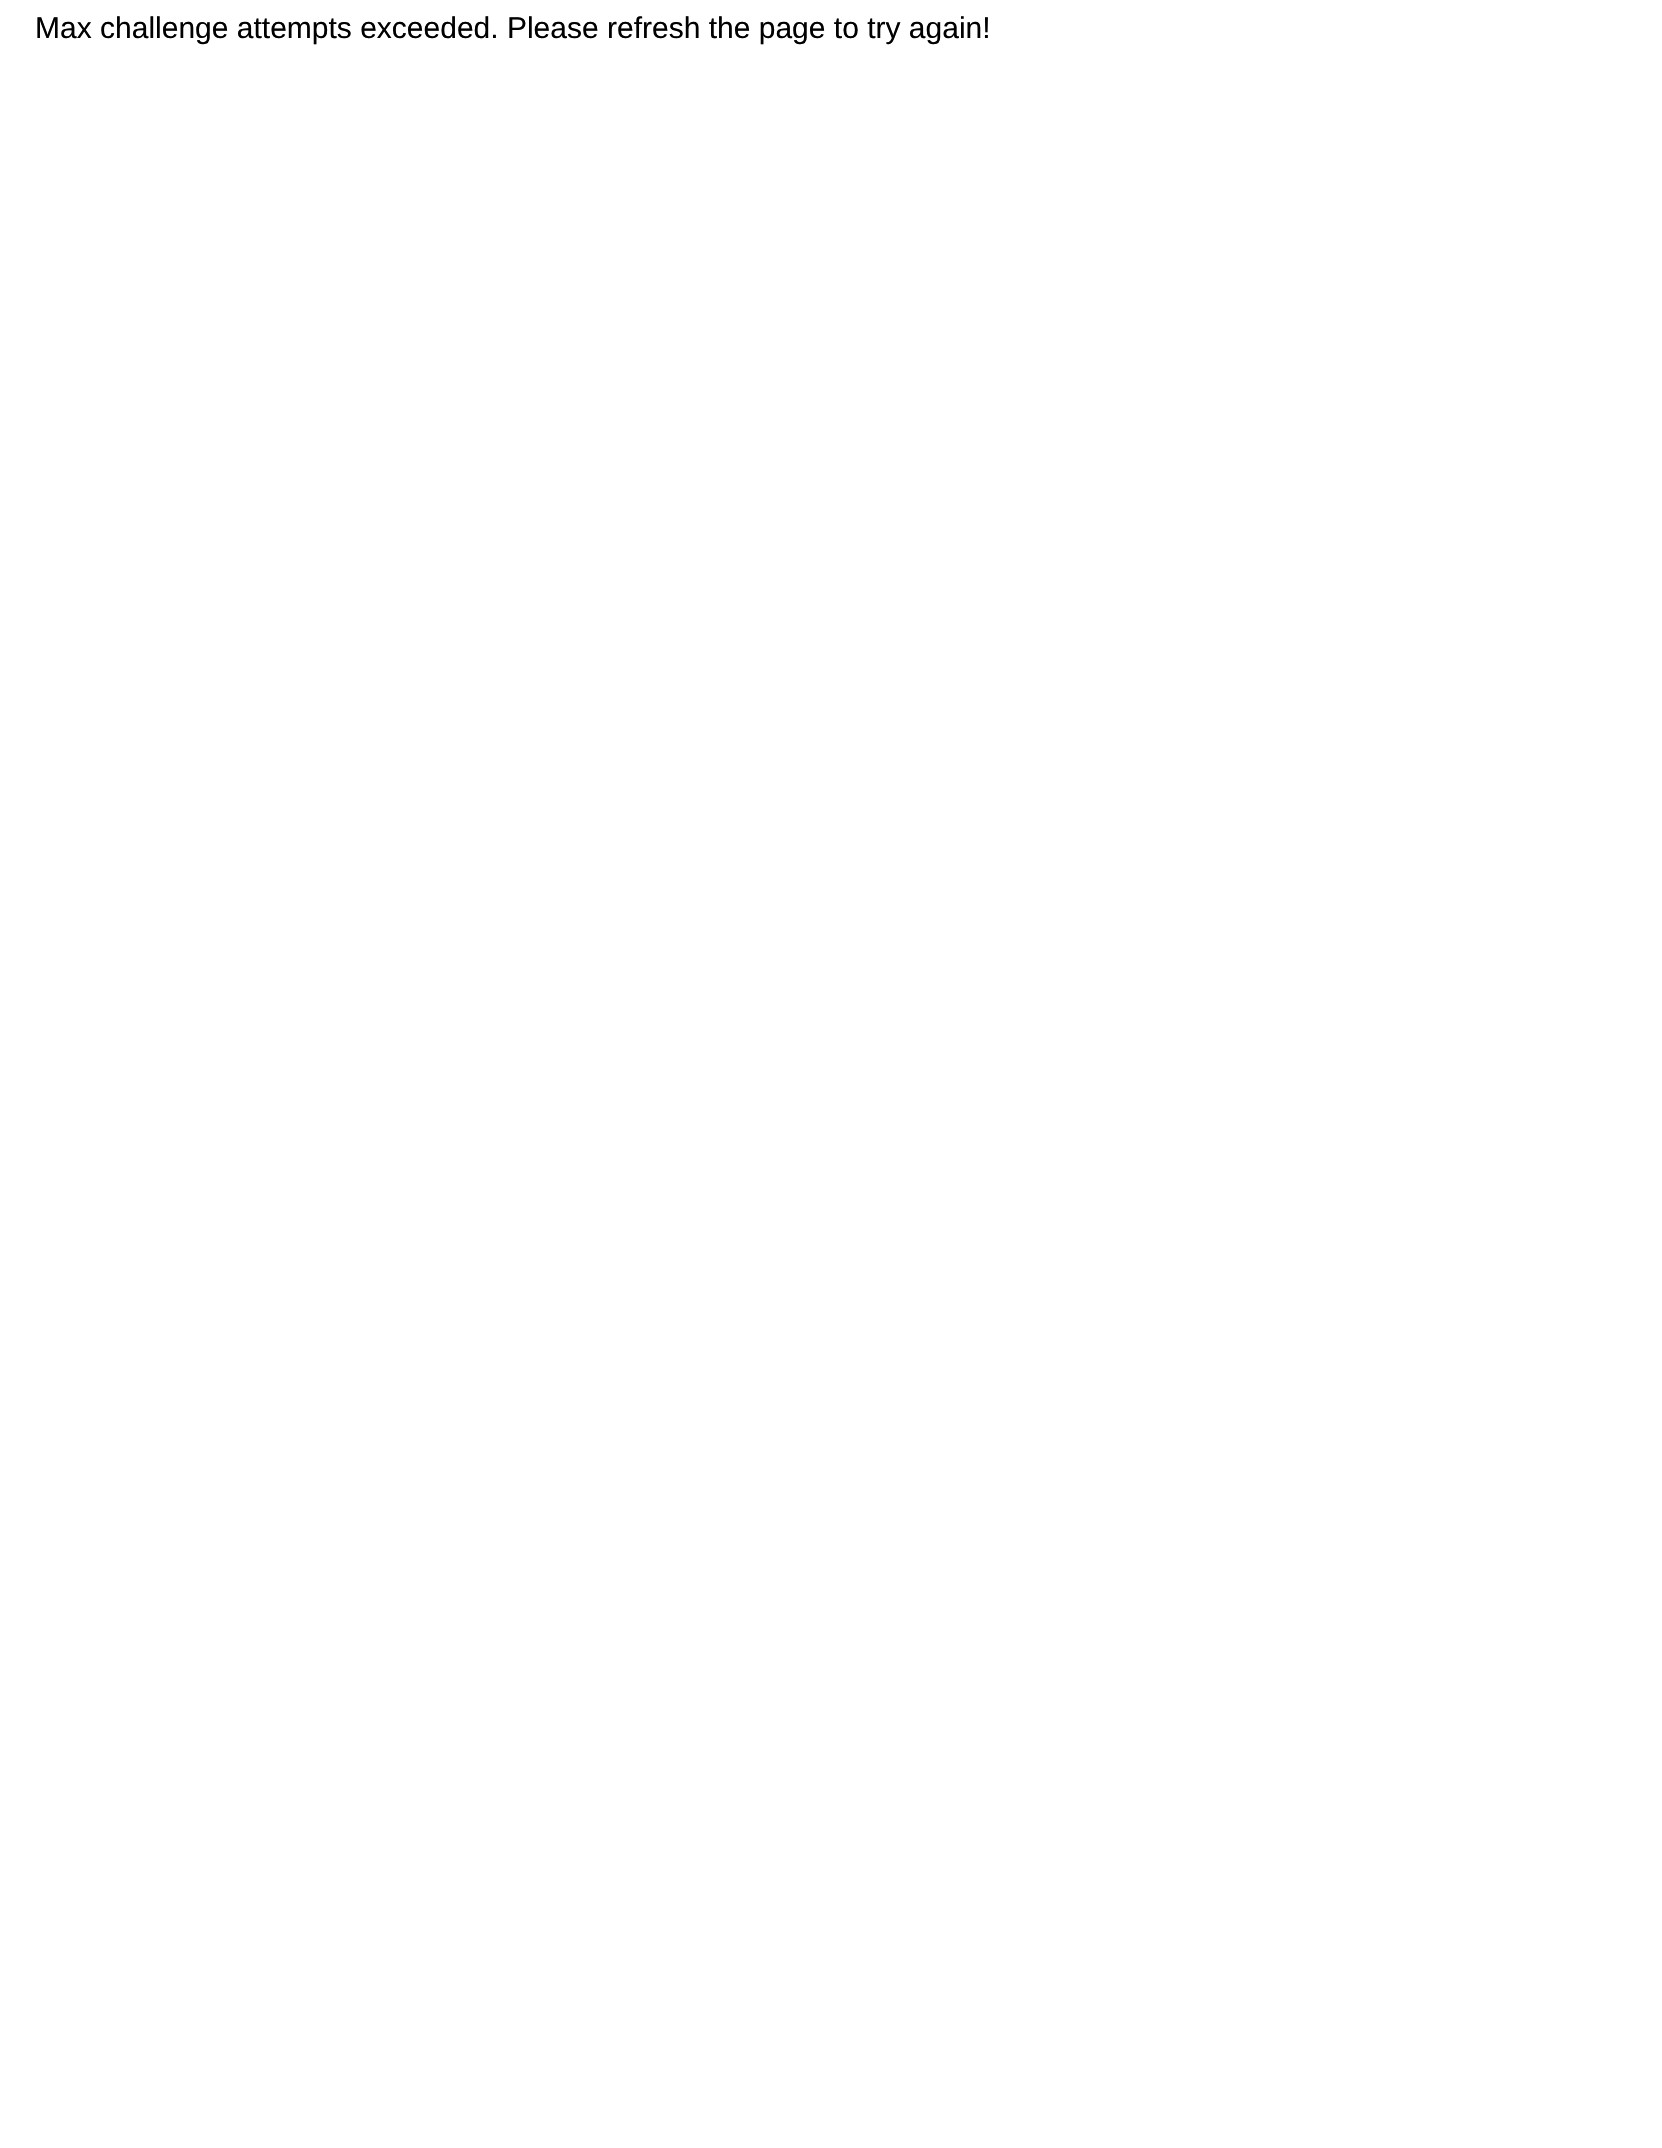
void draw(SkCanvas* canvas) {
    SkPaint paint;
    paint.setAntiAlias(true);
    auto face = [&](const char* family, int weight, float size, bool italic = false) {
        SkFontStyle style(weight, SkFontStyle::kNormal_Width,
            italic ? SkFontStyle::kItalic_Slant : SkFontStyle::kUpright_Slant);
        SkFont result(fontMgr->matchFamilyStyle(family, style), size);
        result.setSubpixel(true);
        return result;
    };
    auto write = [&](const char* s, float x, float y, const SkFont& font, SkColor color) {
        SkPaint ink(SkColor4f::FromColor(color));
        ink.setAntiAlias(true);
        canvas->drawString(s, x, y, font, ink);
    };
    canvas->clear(SK_ColorWHITE);
    auto kFont1 = face("Liberation Sans", 400, 30);
    write("Max challenge attempts exceeded. Please refresh the page to try again!", 35, 38, kFont1, SK_ColorBLACK);
}
